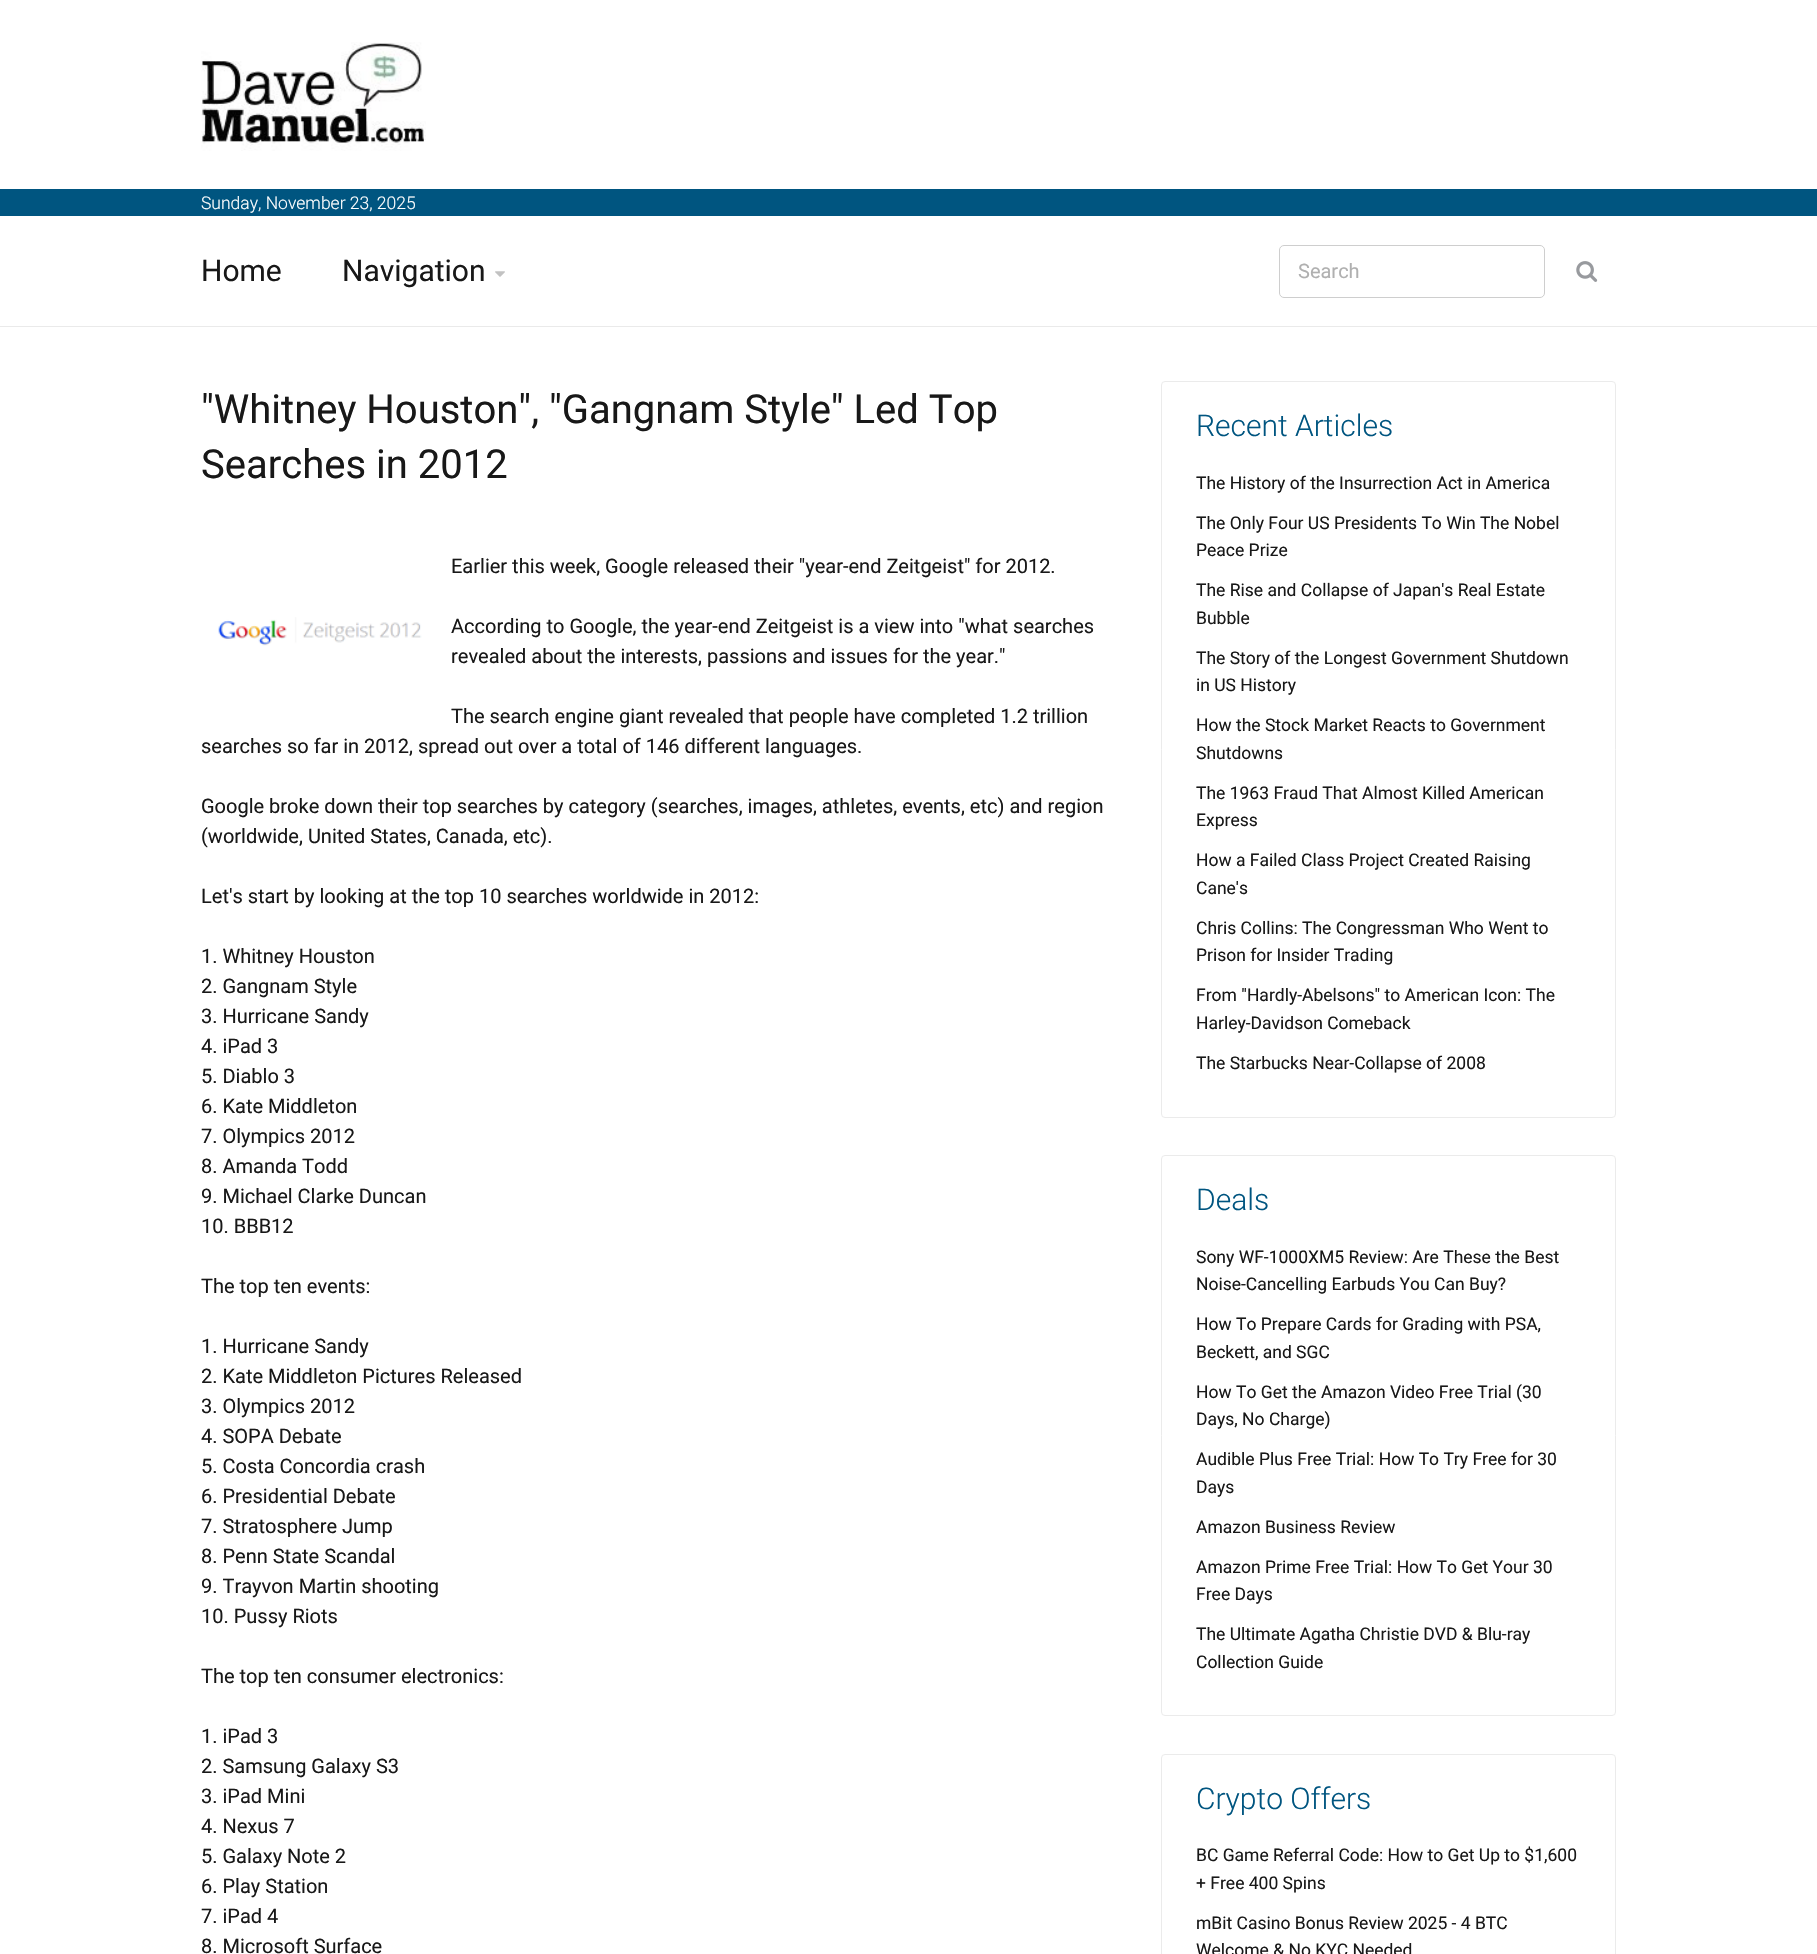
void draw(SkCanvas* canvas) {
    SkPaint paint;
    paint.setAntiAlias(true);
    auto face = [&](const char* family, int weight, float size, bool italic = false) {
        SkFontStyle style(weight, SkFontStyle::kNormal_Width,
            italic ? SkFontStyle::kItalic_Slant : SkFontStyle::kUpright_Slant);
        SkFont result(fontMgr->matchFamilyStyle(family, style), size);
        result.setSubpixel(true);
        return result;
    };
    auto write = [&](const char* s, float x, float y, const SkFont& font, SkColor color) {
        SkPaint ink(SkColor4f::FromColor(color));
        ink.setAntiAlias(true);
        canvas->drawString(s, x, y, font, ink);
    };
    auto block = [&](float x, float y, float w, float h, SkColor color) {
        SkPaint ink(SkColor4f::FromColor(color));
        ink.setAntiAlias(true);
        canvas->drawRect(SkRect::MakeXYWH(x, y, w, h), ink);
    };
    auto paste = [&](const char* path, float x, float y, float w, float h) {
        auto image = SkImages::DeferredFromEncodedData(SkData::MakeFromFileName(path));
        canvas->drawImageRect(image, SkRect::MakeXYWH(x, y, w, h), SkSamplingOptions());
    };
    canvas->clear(SK_ColorWHITE);
    paste("pic1.png", 201, 42, 225, 109);
    block(0, 189, 1817, 27, SkColorSetRGB(0, 85, 128));
    auto kFont1 = face("Roboto", 300, 17.5f);
    write("Sunday, November 23, 2025", 201, 209, kFont1, SK_ColorWHITE);
    block(0, 326, 1817, 1, SkColorSetRGB(234, 234, 234));
    auto kFont2 = face("Roboto", 400, 30);
    write("Home", 201, 281, kFont2, SkColorSetRGB(24, 24, 24));
    write("Navigation", 342, 281, kFont2, SkColorSetRGB(24, 24, 24));
    paste("pic2.png", 495, 271, 10, 6);
    paint.setStyle(SkPaint::kStroke_Style);
    paint.setStrokeWidth(1);
    paint.setColor(SkColorSetRGB(206, 206, 206));
    canvas->drawRoundRect(SkRect::MakeXYWH(1279.5f, 245.5f, 265, 52), 4.5f, 4.5f, paint);
    auto kFont3 = face("Roboto", 400, 20);
    write("Search", 1298, 278, kFont3, SkColorSetRGB(176, 176, 176));
    paste("pic3.png", 1576, 261, 22, 21);
    auto kFont4 = face("Roboto", 400, 40);
    write("\"Whitney Houston\", \"Gangnam Style\" Led Top", 201, 423, kFont4, SkColorSetRGB(24, 24, 24));
    write("Searches in 2012", 201, 478, kFont4, SkColorSetRGB(24, 24, 24));
    write("Earlier this week, Google released their \"year-end Zeitgeist\" for 2012.", 451, 573, kFont3, SkColorSetRGB(24, 24, 24));
    paste("pic4.png", 218, 617, 204, 29);
    write("According to Google, the year-end Zeitgeist is a view into \"what searches", 451, 633, kFont3, SkColorSetRGB(24, 24, 24));
    write("revealed about the interests, passions and issues for the year.\"", 451, 663, kFont3, SkColorSetRGB(24, 24, 24));
    write("The search engine giant revealed that people have completed 1.2 trillion", 451, 723, kFont3, SkColorSetRGB(24, 24, 24));
    write("searches so far in 2012, spread out over a total of 146 different languages.", 201, 753, kFont3, SkColorSetRGB(24, 24, 24));
    write("Google broke down their top searches by category (searches, images, athletes, events, etc) and region", 201, 813, kFont3, SkColorSetRGB(24, 24, 24));
    write("(worldwide, United States, Canada, etc).", 201, 843, kFont3, SkColorSetRGB(24, 24, 24));
    write("Let's start by looking at the top 10 searches worldwide in 2012:", 201, 903, kFont3, SkColorSetRGB(24, 24, 24));
    write("1. Whitney Houston", 201, 963, kFont3, SkColorSetRGB(24, 24, 24));
    write("2. Gangnam Style", 201, 993, kFont3, SkColorSetRGB(24, 24, 24));
    write("3. Hurricane Sandy", 201, 1023, kFont3, SkColorSetRGB(24, 24, 24));
    write("4. iPad 3", 201, 1053, kFont3, SkColorSetRGB(24, 24, 24));
    write("5. Diablo 3", 201, 1083, kFont3, SkColorSetRGB(24, 24, 24));
    write("6. Kate Middleton", 201, 1113, kFont3, SkColorSetRGB(24, 24, 24));
    write("7. Olympics 2012", 201, 1143, kFont3, SkColorSetRGB(24, 24, 24));
    write("8. Amanda Todd", 201, 1173, kFont3, SkColorSetRGB(24, 24, 24));
    write("9. Michael Clarke Duncan", 201, 1203, kFont3, SkColorSetRGB(24, 24, 24));
    write("10. BBB12", 201, 1233, kFont3, SkColorSetRGB(24, 24, 24));
    write("The top ten events:", 201, 1293, kFont3, SkColorSetRGB(24, 24, 24));
    write("1. Hurricane Sandy", 201, 1353, kFont3, SkColorSetRGB(24, 24, 24));
    write("2. Kate Middleton Pictures Released", 201, 1383, kFont3, SkColorSetRGB(24, 24, 24));
    write("3. Olympics 2012", 201, 1413, kFont3, SkColorSetRGB(24, 24, 24));
    write("4. SOPA Debate", 201, 1443, kFont3, SkColorSetRGB(24, 24, 24));
    write("5. Costa Concordia crash", 201, 1473, kFont3, SkColorSetRGB(24, 24, 24));
    write("6. Presidential Debate", 201, 1503, kFont3, SkColorSetRGB(24, 24, 24));
    write("7. Stratosphere Jump", 201, 1533, kFont3, SkColorSetRGB(24, 24, 24));
    write("8. Penn State Scandal", 201, 1563, kFont3, SkColorSetRGB(24, 24, 24));
    write("9. Trayvon Martin shooting", 201, 1593, kFont3, SkColorSetRGB(24, 24, 24));
    write("10. Pussy Riots", 201, 1623, kFont3, SkColorSetRGB(24, 24, 24));
    write("The top ten consumer electronics:", 201, 1683, kFont3, SkColorSetRGB(24, 24, 24));
    write("1. iPad 3", 201, 1743, kFont3, SkColorSetRGB(24, 24, 24));
    write("2. Samsung Galaxy S3", 201, 1773, kFont3, SkColorSetRGB(24, 24, 24));
    write("3. iPad Mini", 201, 1803, kFont3, SkColorSetRGB(24, 24, 24));
    write("4. Nexus 7", 201, 1833, kFont3, SkColorSetRGB(24, 24, 24));
    write("5. Galaxy Note 2", 201, 1863, kFont3, SkColorSetRGB(24, 24, 24));
    write("6. Play Station", 201, 1893, kFont3, SkColorSetRGB(24, 24, 24));
    write("7. iPad 4", 201, 1923, kFont3, SkColorSetRGB(24, 24, 24));
    write("8. Microsoft Surface", 201, 1953, kFont3, SkColorSetRGB(24, 24, 24));
    paint.setColor(SkColorSetRGB(235, 235, 235));
    canvas->drawRoundRect(SkRect::MakeXYWH(1161.5f, 381.5f, 454, 736), 3.5f, 3.5f, paint);
    auto kFont5 = face("Roboto", 300, 30);
    write("Recent Articles", 1196, 436, kFont5, SkColorSetRGB(0, 85, 128));
    auto kFont6 = face("Roboto", 400, 17.5f);
    write("The History of the Insurrection Act in America", 1196, 489, kFont6, SkColorSetRGB(24, 24, 24));
    write("The Only Four US Presidents To Win The Nobel", 1196, 529, kFont6, SkColorSetRGB(24, 24, 24));
    write("Peace Prize", 1196, 556, kFont6, SkColorSetRGB(24, 24, 24));
    write("The Rise and Collapse of Japan's Real Estate", 1196, 596, kFont6, SkColorSetRGB(24, 24, 24));
    write("Bubble", 1196, 624, kFont6, SkColorSetRGB(24, 24, 24));
    write("The Story of the Longest Government Shutdown", 1196, 664, kFont6, SkColorSetRGB(24, 24, 24));
    write("in US History", 1196, 691, kFont6, SkColorSetRGB(24, 24, 24));
    write("How the Stock Market Reacts to Government", 1196, 731, kFont6, SkColorSetRGB(24, 24, 24));
    write("Shutdowns", 1196, 759, kFont6, SkColorSetRGB(24, 24, 24));
    write("The 1963 Fraud That Almost Killed American", 1196, 799, kFont6, SkColorSetRGB(24, 24, 24));
    write("Express", 1196, 826, kFont6, SkColorSetRGB(24, 24, 24));
    write("How a Failed Class Project Created Raising", 1196, 866, kFont6, SkColorSetRGB(24, 24, 24));
    write("Cane's", 1196, 894, kFont6, SkColorSetRGB(24, 24, 24));
    write("Chris Collins: The Congressman Who Went to", 1196, 934, kFont6, SkColorSetRGB(24, 24, 24));
    write("Prison for Insider Trading", 1196, 961, kFont6, SkColorSetRGB(24, 24, 24));
    write("From \"Hardly-Abelsons\" to American Icon: The", 1196, 1001, kFont6, SkColorSetRGB(24, 24, 24));
    write("Harley-Davidson Comeback", 1196, 1029, kFont6, SkColorSetRGB(24, 24, 24));
    write("The Starbucks Near-Collapse of 2008", 1196, 1069, kFont6, SkColorSetRGB(24, 24, 24));
    canvas->drawRoundRect(SkRect::MakeXYWH(1161.5f, 1155.5f, 454, 560), 3.5f, 3.5f, paint);
    write("Deals", 1196, 1210, kFont5, SkColorSetRGB(0, 85, 128));
    write("Sony WF-1000XM5 Review: Are These the Best", 1196, 1263, kFont6, SkColorSetRGB(24, 24, 24));
    write("Noise-Cancelling Earbuds You Can Buy?", 1196, 1290, kFont6, SkColorSetRGB(24, 24, 24));
    write("How To Prepare Cards for Grading with PSA,", 1196, 1330, kFont6, SkColorSetRGB(24, 24, 24));
    write("Beckett, and SGC", 1196, 1358, kFont6, SkColorSetRGB(24, 24, 24));
    write("How To Get the Amazon Video Free Trial (30", 1196, 1398, kFont6, SkColorSetRGB(24, 24, 24));
    write("Days, No Charge)", 1196, 1425, kFont6, SkColorSetRGB(24, 24, 24));
    write("Audible Plus Free Trial: How To Try Free for 30", 1196, 1465, kFont6, SkColorSetRGB(24, 24, 24));
    write("Days", 1196, 1493, kFont6, SkColorSetRGB(24, 24, 24));
    write("Amazon Business Review", 1196, 1533, kFont6, SkColorSetRGB(24, 24, 24));
    write("Amazon Prime Free Trial: How To Get Your 30", 1196, 1573, kFont6, SkColorSetRGB(24, 24, 24));
    write("Free Days", 1196, 1600, kFont6, SkColorSetRGB(24, 24, 24));
    write("The Ultimate Agatha Christie DVD & Blu-ray", 1196, 1640, kFont6, SkColorSetRGB(24, 24, 24));
    write("Collection Guide", 1196, 1668, kFont6, SkColorSetRGB(24, 24, 24));
    canvas->drawRoundRect(SkRect::MakeXYWH(1161.5f, 1754.5f, 454, 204), 3.5f, 3.5f, paint);
    write("Crypto Offers", 1196, 1809, kFont5, SkColorSetRGB(0, 85, 128));
    write("BC Game Referral Code: How to Get Up to $1,600", 1196, 1861, kFont6, SkColorSetRGB(24, 24, 24));
    write("+ Free 400 Spins", 1196, 1889, kFont6, SkColorSetRGB(24, 24, 24));
    write("mBit Casino Bonus Review 2025 - 4 BTC", 1196, 1929, kFont6, SkColorSetRGB(24, 24, 24));
    write("Welcome & No KYC Needed", 1196, 1956, kFont6, SkColorSetRGB(24, 24, 24));
}
